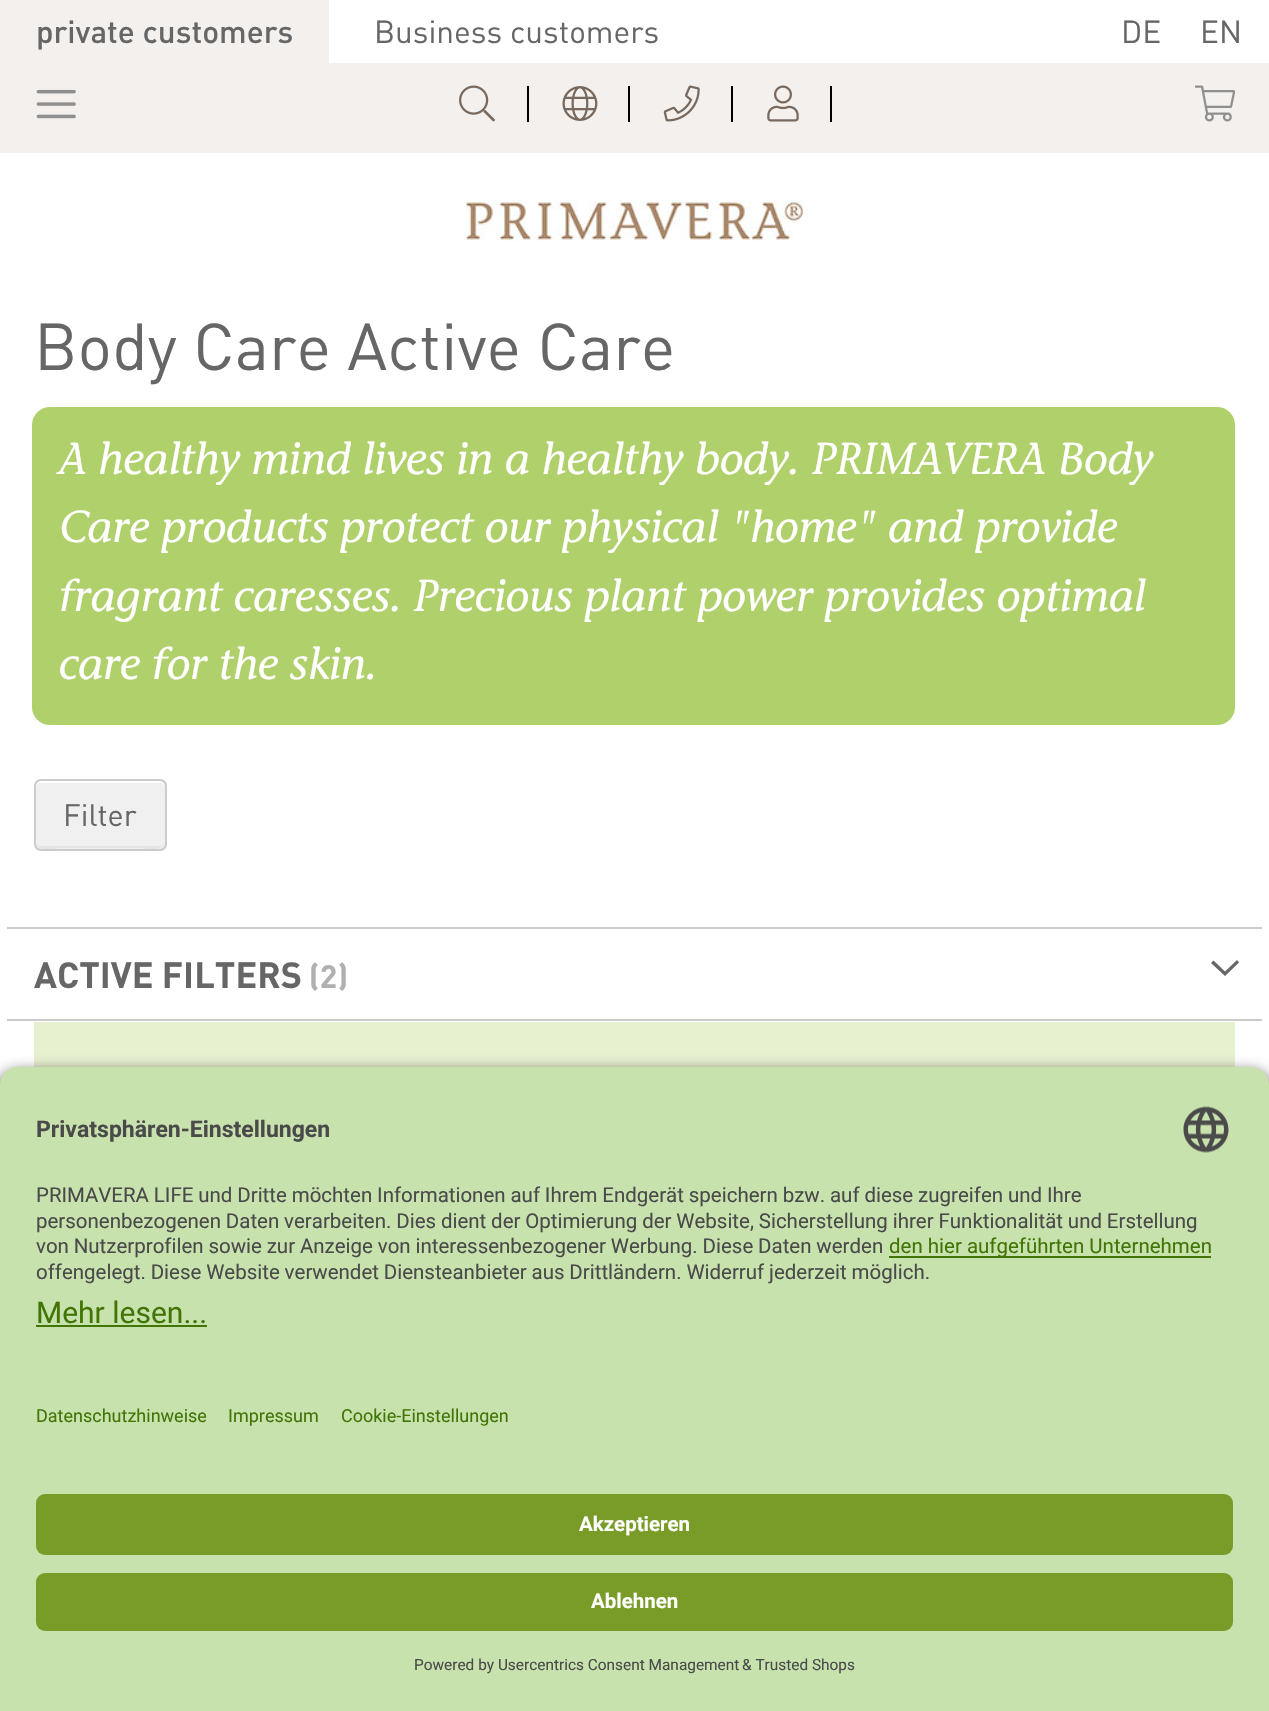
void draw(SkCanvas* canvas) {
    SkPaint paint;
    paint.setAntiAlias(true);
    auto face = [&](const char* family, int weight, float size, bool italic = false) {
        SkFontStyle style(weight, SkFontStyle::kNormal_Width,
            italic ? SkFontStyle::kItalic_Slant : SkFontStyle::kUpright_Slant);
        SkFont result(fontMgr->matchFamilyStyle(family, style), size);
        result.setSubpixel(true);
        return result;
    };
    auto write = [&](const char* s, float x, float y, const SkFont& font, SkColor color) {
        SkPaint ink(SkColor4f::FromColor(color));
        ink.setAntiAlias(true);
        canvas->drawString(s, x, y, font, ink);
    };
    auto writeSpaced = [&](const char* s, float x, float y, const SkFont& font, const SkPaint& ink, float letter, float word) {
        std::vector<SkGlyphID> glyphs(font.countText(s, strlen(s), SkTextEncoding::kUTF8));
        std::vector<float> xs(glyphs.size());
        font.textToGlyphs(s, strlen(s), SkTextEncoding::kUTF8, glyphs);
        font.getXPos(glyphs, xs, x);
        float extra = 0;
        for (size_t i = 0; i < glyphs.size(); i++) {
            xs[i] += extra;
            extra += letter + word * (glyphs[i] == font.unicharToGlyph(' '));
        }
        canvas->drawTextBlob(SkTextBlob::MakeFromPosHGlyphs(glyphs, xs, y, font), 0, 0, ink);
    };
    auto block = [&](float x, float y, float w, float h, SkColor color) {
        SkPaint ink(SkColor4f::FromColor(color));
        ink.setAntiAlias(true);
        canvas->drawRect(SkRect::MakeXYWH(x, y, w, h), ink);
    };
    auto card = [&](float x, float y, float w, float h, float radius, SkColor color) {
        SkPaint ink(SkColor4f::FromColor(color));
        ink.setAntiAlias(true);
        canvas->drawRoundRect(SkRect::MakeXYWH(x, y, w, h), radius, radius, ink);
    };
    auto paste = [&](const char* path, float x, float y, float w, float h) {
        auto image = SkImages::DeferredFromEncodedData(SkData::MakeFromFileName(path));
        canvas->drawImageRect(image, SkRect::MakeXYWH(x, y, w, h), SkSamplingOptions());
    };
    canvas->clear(SK_ColorWHITE);
    block(0, 0, 329, 63, SkColorSetRGB(243, 240, 238));
    auto kFont1 = face("DIN", 500, 31.5f);
    write("private customers", 36, 43, kFont1, SkColorSetRGB(102, 102, 102));
    auto kFont2 = face("DIN", 400, 31.5f);
    write("Business customers", 374, 43, kFont2, SkColorSetRGB(102, 102, 102));
    write("DE", 1121, 43, kFont2, SkColorSetRGB(102, 102, 102));
    write("EN", 1200, 43, kFont2, SkColorSetRGB(102, 102, 102));
    block(0, 63, 1269, 90, SkColorSetRGB(243, 240, 238));
    paste("pic1.png", 459, 85, 36, 37);
    block(527, 86, 2, 36, SK_ColorBLACK);
    paste("pic2.png", 562, 86, 36, 35);
    block(628, 86, 2, 36, SK_ColorBLACK);
    paste("pic3.png", 663, 85, 37, 37);
    block(731, 86, 2, 36, SK_ColorBLACK);
    paste("pic4.png", 767, 85, 32, 37);
    block(830, 86, 2, 36, SK_ColorBLACK);
    paste("pic5.png", 1195, 85, 40, 37);
    paste("pic6.png", 36, 89, 40, 30);
    paste("pic7.png", 465, 200, 339, 41);
    auto kFont3 = face("DIN", 400, 65.25f);
    write("Body Care Active Care", 34, 370, kFont3, SkColorSetRGB(102, 102, 102));
    card(32, 407, 1203, 318, 18, SkColorSetRGB(176, 208, 108));
    auto kFont4 = face("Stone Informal", 400, 44.5f, true);
    write("A healthy mind lives in a healthy body. PRIMAVERA Body", 59, 474, kFont4, SK_ColorWHITE);
    write("Care products protect our physical \"home\" and provide", 59, 542, kFont4, SK_ColorWHITE);
    write("fragrant caresses. Precious plant power provides optimal", 59, 611, kFont4, SK_ColorWHITE);
    write("care for the skin.", 59, 679, kFont4, SK_ColorWHITE);
    card(34, 779, 133, 72, 7, SkColorSetRGB(240, 240, 240));
    paint.setColor(SkColorSetRGB(229, 229, 229));
    canvas->drawPath(SkPathBuilder().moveTo(36, 842).cubicTo(36, 853, 57, 848, 61, 848).lineTo(139, 848).cubicTo(143, 848, 164, 853, 164, 842).cubicTo(164, 844, 162, 846, 160, 846).lineTo(40, 846).cubicTo(38, 846, 36, 844, 36, 842).close().detach(), paint);
    paint.setColor(SK_ColorWHITE);
    canvas->drawPath(SkPathBuilder().moveTo(40, 783).lineTo(160, 783).cubicTo(162, 783, 164, 785, 164, 788).lineTo(164, 786).cubicTo(164, 783, 162, 781, 159, 781).lineTo(41, 781).cubicTo(38, 781, 36, 783, 36, 786).lineTo(36, 788).cubicTo(36, 785, 38, 783, 40, 783).close().detach(), paint);
    paint.setStyle(SkPaint::kStroke_Style);
    paint.setStrokeWidth(2);
    paint.setColor(SkColorSetRGB(204, 204, 204));
    canvas->drawRoundRect(SkRect::MakeXYWH(35, 780, 131, 70), 6, 6, paint);
    auto kFont5 = face("DIN", 400, 30.5f);
    write("Filter", 63, 826, kFont5, SkColorSetRGB(102, 102, 102));
    block(7, 927, 1255, 2, SkColorSetRGB(204, 204, 204));
    block(7, 1019, 1255, 2, SkColorSetRGB(204, 204, 204));
    auto kFont6 = face("DIN", 700, 36);
    write("ACTIVE FILTERS", 34, 988, kFont6, SkColorSetRGB(102, 102, 102));
    auto kFont7 = face("DIN", 700, 32);
    write("(2)", 309, 988, kFont7, SkColorSetRGB(176, 176, 176));
    paint.setStyle(SkPaint::kFill_Style);
    paint.setColor(SkColorSetRGB(102, 102, 102));
    canvas->drawPath(SkPathBuilder().moveTo(1225, 971.5f).lineTo(1213.5f, 960.5f).lineTo(1211, 963).lineTo(1225, 976).lineTo(1239, 962.5f).lineTo(1237, 960).close().detach(), paint);
    block(34, 1022, 1201, 45, SkColorSetRGB(231, 240, 207));
    paint.setColor(SkColorSetARGB(204, 0, 0, 0));
    paint.setMaskFilter(SkMaskFilter::MakeBlur(kNormal_SkBlurStyle, 8));
    canvas->drawRoundRect(SkRect::MakeXYWH(0, 1073, 1269, 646), 18, 18, paint);
    paint.setMaskFilter(nullptr);
    paint.setColor(SkColorSetRGB(200, 226, 174));
    canvas->drawPath(SkPathBuilder().moveTo(18, 1067).lineTo(1251, 1067).cubicTo(1261, 1067, 1269, 1075, 1269, 1085).lineTo(1269, 1366).lineTo(0, 1366).lineTo(0, 1085).cubicTo(0, 1075, 8, 1067, 18, 1067).close().detach(), paint);
    auto kFont8 = face("Roboto", 700, 23);
    write("Privatsphären-Einstellungen", 36, 1137, kFont8, SkColorSetRGB(74, 74, 74));
    paste("pic8.png", 1183, 1106, 46, 47);
    auto kFont9 = face("Roboto", 400, 20.47f);
    paint.setColor(SkColorSetRGB(74, 74, 74));
    writeSpaced("PRIMAVERA LIFE und Dritte möchten Informationen auf Ihrem Endgerät speichern bzw. auf diese zugreifen und Ihre", 36, 1202, kFont9, paint, 0, -0.2f);
    writeSpaced("personenbezogenen Daten verarbeiten. Dies dient der Optimierung der Website, Sicherstellung ihrer Funktionalität und Erstellung", 36, 1228, kFont9, paint, 0, -0.25f);
    writeSpaced("von Nutzerprofilen sowie zur Anzeige von interessenbezogener Werbung. Diese Daten werden", 36, 1253, kFont9, paint, 0, -0.25f);
    block(889, 1256, 322, 2, SkColorSetRGB(65, 117, 5));
    write("den hier aufgeführten Unternehmen", 889, 1253, kFont9, SkColorSetRGB(65, 117, 5));
    writeSpaced("offengelegt. Diese Website verwendet Diensteanbieter aus Drittländern. Widerruf jederzeit möglich.", 36, 1279, kFont9, paint, 0, -0.25f);
    auto kFont10 = face("Roboto", 400, 30);
    write("Mehr lesen...", 36, 1323, kFont10, SkColorSetRGB(65, 117, 5));
    block(36, 1325, 171, 2, SkColorSetRGB(65, 117, 5));
    block(0, 1366, 1269, 345, SkColorSetRGB(200, 226, 174));
    auto kFont11 = face("Roboto", 400, 18);
    write("Datenschutzhinweise", 36, 1422, kFont11, SkColorSetRGB(65, 117, 5));
    write("Impressum", 228, 1422, kFont11, SkColorSetRGB(65, 117, 5));
    write("Cookie-Einstellungen", 341, 1422, kFont11, SkColorSetRGB(65, 117, 5));
    card(36, 1494, 1197, 61, 9, SkColorSetRGB(120, 156, 39));
    auto kFont12 = face("Roboto", 700, 20.47f);
    write("Akzeptieren", 579, 1531, kFont12, SK_ColorWHITE);
    card(36, 1573, 1197, 58, 9, SkColorSetRGB(120, 156, 39));
    write("Ablehnen", 591, 1608, kFont12, SK_ColorWHITE);
    auto kFont13 = face("Roboto", 400, 15.4f);
    write("Powered by Usercentrics Consent Management", 414, 1670, kFont13, SkColorSetRGB(74, 74, 74));
    write("& Trusted Shops", 742, 1670, kFont13, SkColorSetRGB(74, 74, 74));
}
